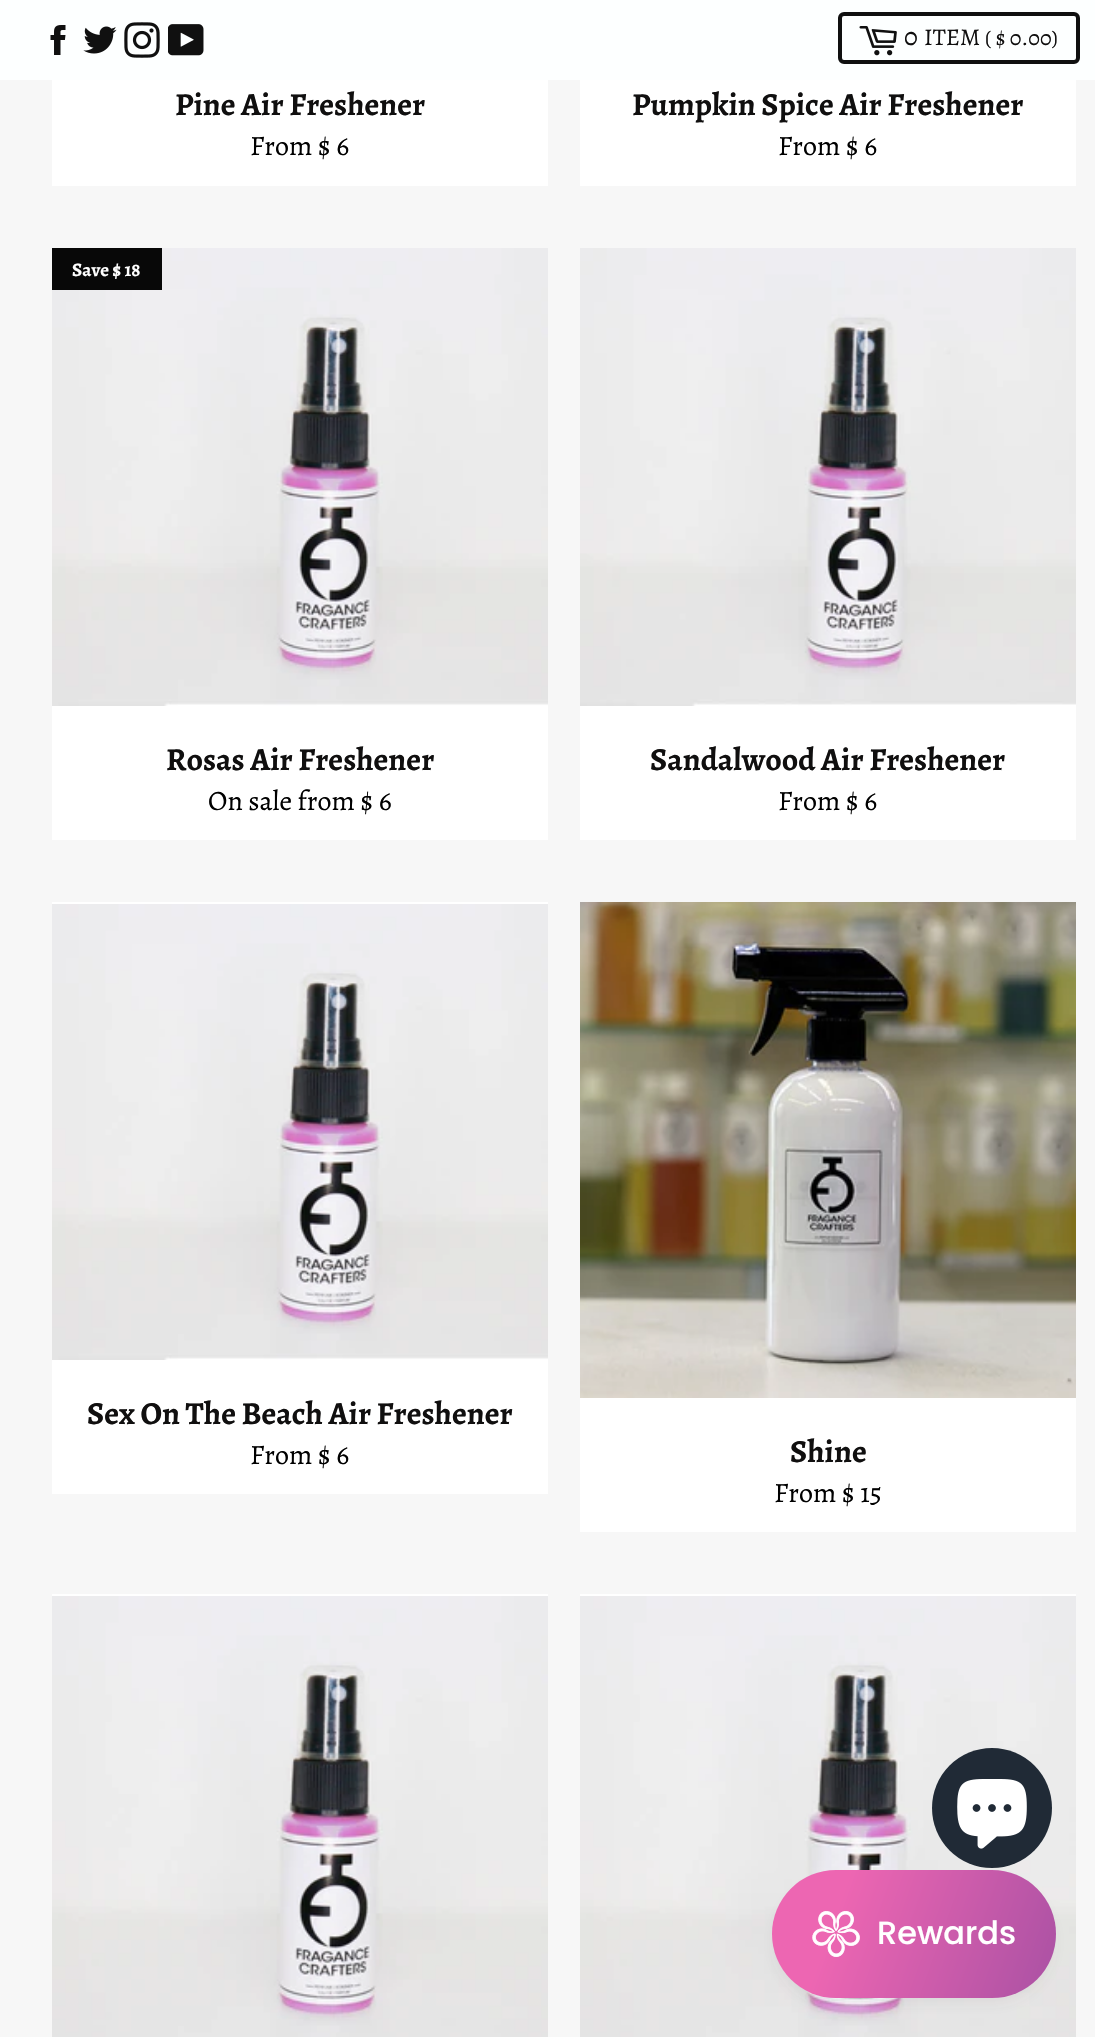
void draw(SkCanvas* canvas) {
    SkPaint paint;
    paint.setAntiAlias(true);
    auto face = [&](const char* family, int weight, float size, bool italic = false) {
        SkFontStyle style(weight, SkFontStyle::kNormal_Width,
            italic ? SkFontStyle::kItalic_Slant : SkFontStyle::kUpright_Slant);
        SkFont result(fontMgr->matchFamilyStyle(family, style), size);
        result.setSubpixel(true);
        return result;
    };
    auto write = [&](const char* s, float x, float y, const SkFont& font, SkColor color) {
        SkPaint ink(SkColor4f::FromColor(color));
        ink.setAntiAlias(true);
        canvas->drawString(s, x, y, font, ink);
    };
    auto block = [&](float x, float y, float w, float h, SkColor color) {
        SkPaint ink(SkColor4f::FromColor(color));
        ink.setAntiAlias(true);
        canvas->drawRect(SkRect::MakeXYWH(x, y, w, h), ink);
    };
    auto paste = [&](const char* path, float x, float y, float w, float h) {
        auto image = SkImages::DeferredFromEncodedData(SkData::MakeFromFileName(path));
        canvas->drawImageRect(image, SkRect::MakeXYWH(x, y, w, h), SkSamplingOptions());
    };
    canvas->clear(SkColorSetRGB(247, 247, 247));
    block(0, 0, 1095, 80, SkColorSetRGB(253, 255, 255));
    paste("pic1.png", 50, 25, 16, 30);
    paste("pic2.png", 83, 26, 34, 28);
    paste("pic3.png", 124, 22, 36, 36);
    paste("pic4.png", 168, 24, 36, 32);
    paint.setStyle(SkPaint::kStroke_Style);
    paint.setStrokeWidth(4);
    paint.setColor(SkColorSetRGB(16, 16, 16));
    canvas->drawRoundRect(SkRect::MakeXYWH(840, 14, 238, 48), 4, 4, paint);
    paste("pic5.png", 859, 26, 38, 30);
    auto kFont1 = face("Alegreya", 400, 26);
    write("0", 904, 45, kFont1, SkColorSetRGB(16, 15, 15));
    auto kFont2 = face("Alegreya", 400, 24);
    write("ITEM", 924, 45, kFont2, SkColorSetRGB(16, 15, 15));
    auto kFont3 = face("Alegreya", 400, 22);
    write("( $ 0.00)", 985, 45, kFont3, SkColorSetRGB(16, 15, 15));
    block(52, 80, 496, 106, SK_ColorWHITE);
    auto kFont4 = face("Alegreya", 700, 32);
    write("Pine Air Freshener", 175, 115, kFont4, SkColorSetRGB(16, 15, 15));
    auto kFont5 = face("Alegreya", 400, 28);
    write("From $ 6", 250, 155, kFont5, SK_ColorBLACK);
    block(580, 80, 496, 106, SK_ColorWHITE);
    write("Pumpkin Spice Air Freshener", 632, 115, kFont4, SkColorSetRGB(16, 15, 15));
    write("From $ 6", 778, 155, kFont5, SK_ColorBLACK);
    block(52, 706, 496, 134, SK_ColorWHITE);
    paste("pic6.png", 52, 248, 496, 458);
    block(52, 248, 110, 42, SkColorSetRGB(8, 8, 8));
    auto kFont6 = face("Alegreya", 700, 19);
    write("Save $ 18", 72, 276, kFont6, SK_ColorWHITE);
    write("Rosas Air Freshener", 166, 770, kFont4, SkColorSetRGB(16, 15, 15));
    write("On sale from $ 6", 208, 810, kFont5, SK_ColorBLACK);
    block(580, 706, 496, 134, SK_ColorWHITE);
    paste("pic7.png", 580, 248, 496, 458);
    write("Sandalwood Air Freshener", 650, 770, kFont4, SkColorSetRGB(16, 15, 15));
    write("From $ 6", 778, 810, kFont5, SK_ColorBLACK);
    block(52, 902, 496, 592, SK_ColorWHITE);
    paste("pic8.png", 52, 904, 496, 456);
    write("Sex On The Beach Air Freshener", 87, 1424, kFont4, SkColorSetRGB(16, 15, 15));
    write("From $ 6", 250, 1464, kFont5, SK_ColorBLACK);
    block(580, 1398, 496, 134, SK_ColorWHITE);
    paste("pic9.png", 580, 902, 496, 496);
    write("Shine", 790, 1462, kFont4, SkColorSetRGB(16, 15, 15));
    write("From $ 15", 774, 1502, kFont5, SK_ColorBLACK);
    block(52, 1594, 496, 2, SK_ColorWHITE);
    paste("pic10.png", 52, 1596, 496, 441);
    block(580, 1594, 496, 2, SK_ColorWHITE);
    paste("pic10.png", 580, 1596, 496, 441);
    paint.setStyle(SkPaint::kFill_Style);
    paint.setColor(SkColorSetARGB(20, 68, 68, 68));
    paint.setMaskFilter(SkMaskFilter::MakeBlur(kNormal_SkBlurStyle, 8));
    canvas->drawRoundRect(SkRect::MakeXYWH(776, 1882, 276, 120), 60, 60, paint);
    paint.setMaskFilter(nullptr);
    paint.setColor(SkColorSetRGB(32, 42, 54));
    canvas->drawCircle(992, 1808, 60, paint);
    paste("pic11.png", 957, 1779, 70, 70);
    {
        const SkColor colors[] = {SkColorSetRGB(237, 102, 178), SkColorSetRGB(134, 70, 156)};
        const float stops[] = {0.17f, 1};
        const SkPoint ends[] = {{768, 1882}, {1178, 2028}};
        paint.setShader(SkGradientShader::MakeLinear(ends, colors, stops, 2, SkTileMode::kClamp));
        paint.setAlpha(255);
    }
    canvas->drawRoundRect(SkRect::MakeXYWH(772, 1870, 284, 128), 64, 64, paint);
    paste("pic12.png", 812, 1911, 48, 46);
    auto kFont7 = face("Poppins", 500, 32);
    write("Rewards", 877, 1944, kFont7, SK_ColorWHITE);
}
